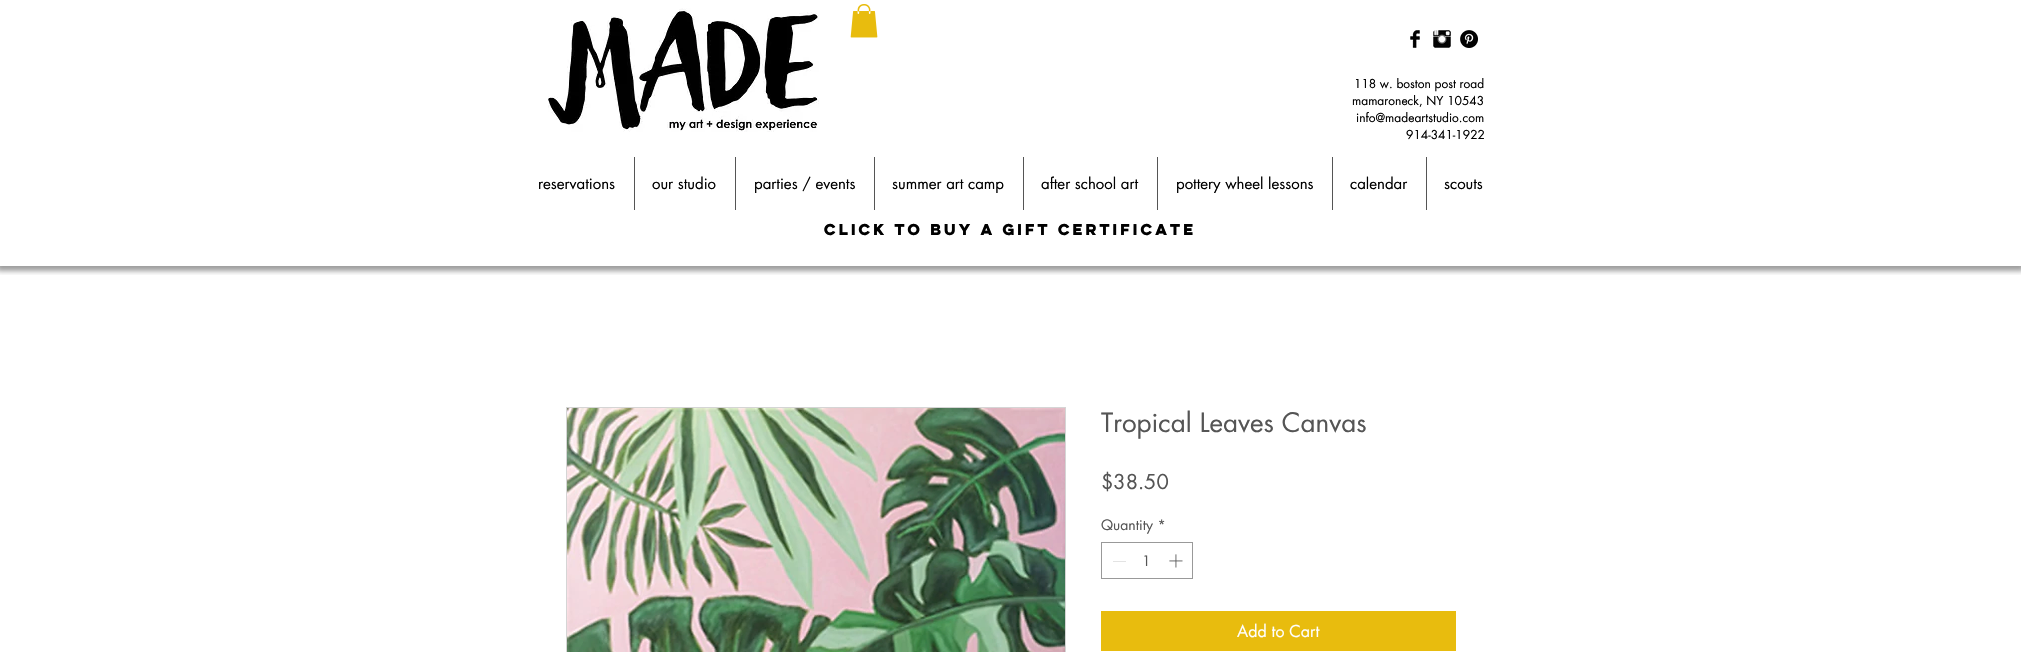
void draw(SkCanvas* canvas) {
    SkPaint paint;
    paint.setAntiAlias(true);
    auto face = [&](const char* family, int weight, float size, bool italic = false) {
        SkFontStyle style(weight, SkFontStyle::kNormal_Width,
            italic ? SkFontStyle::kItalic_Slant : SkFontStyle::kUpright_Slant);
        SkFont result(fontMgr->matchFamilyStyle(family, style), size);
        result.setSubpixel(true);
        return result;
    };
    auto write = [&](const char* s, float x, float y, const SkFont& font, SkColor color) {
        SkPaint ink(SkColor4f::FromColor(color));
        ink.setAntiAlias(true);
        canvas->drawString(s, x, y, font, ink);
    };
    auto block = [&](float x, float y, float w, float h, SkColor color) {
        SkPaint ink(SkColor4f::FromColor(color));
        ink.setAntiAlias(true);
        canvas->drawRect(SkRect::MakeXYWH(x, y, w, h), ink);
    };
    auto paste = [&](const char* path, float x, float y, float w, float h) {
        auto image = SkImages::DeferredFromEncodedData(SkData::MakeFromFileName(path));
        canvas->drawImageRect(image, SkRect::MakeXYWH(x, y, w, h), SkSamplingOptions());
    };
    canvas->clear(SK_ColorWHITE);
    canvas->save();
    canvas->clipRect(SkRect::MakeXYWH(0, 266, 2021, 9));
    paint.setColor(SkColorSetARGB(97, 0, 0, 0));
    paint.setMaskFilter(SkMaskFilter::MakeBlur(kNormal_SkBlurStyle, 2.5f));
    canvas->drawRect(SkRect::MakeXYWH(-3, -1, 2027, 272), paint);
    paint.setMaskFilter(nullptr);
    canvas->restore();
    paste("pic1.png", 548, 8, 271, 124);
    paste("pic2.png", 850, 4, 28, 34);
    paste("pic3.png", 1410, 30, 10, 18);
    paste("pic4.png", 1433, 30, 18, 18);
    paste("pic5.png", 1460, 30, 18, 18);
    auto kFont1 = face("futura", 400, 12);
    write("118 w. boston post road", 1354, 88, kFont1, SK_ColorBLACK);
    write("mamaroneck, NY 10543", 1352, 105, kFont1, SK_ColorBLACK);
    write("info@madeartstudio.com", 1356, 122, kFont1, SK_ColorBLACK);
    write("914-341-1922", 1406, 139, kFont1, SK_ColorBLACK);
    auto kFont2 = face("futura", 400, 15);
    write("reservations", 538, 189, kFont2, SK_ColorBLACK);
    block(634, 157, 1, 53, SkColorSetRGB(85, 85, 85));
    write("our studio", 652, 189, kFont2, SK_ColorBLACK);
    block(735, 157, 1, 53, SkColorSetRGB(85, 85, 85));
    write("parties / events", 754, 189, kFont2, SK_ColorBLACK);
    block(874, 157, 1, 53, SkColorSetRGB(85, 85, 85));
    write("summer art camp", 892, 189, kFont2, SK_ColorBLACK);
    block(1023, 157, 1, 53, SkColorSetRGB(85, 85, 85));
    write("after school art", 1041, 189, kFont2, SK_ColorBLACK);
    block(1157, 157, 1, 53, SkColorSetRGB(85, 85, 85));
    write("pottery wheel lessons", 1176, 189, kFont2, SK_ColorBLACK);
    block(1332, 157, 1, 53, SkColorSetRGB(85, 85, 85));
    write("calendar", 1350, 189, kFont2, SK_ColorBLACK);
    block(1426, 157, 1, 53, SkColorSetRGB(85, 85, 85));
    write("scouts", 1444, 189, kFont2, SK_ColorBLACK);
    auto kFont3 = face("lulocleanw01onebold", 700, 14);
    write("click to buy a gift certificate", 824, 235, kFont3, SK_ColorBLACK);
    paint.setStyle(SkPaint::kStroke_Style);
    paint.setStrokeWidth(1);
    paint.setColor(SkColorSetRGB(213, 213, 213));
    canvas->drawRect(SkRect::MakeXYWH(566.5f, 407.5f, 499, 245), paint);
    paste("pic6.png", 567, 408, 498, 244);
    auto kFont4 = face("futura", 400, 26);
    write("Tropical Leaves Canvas", 1101, 432, kFont4, SkColorSetRGB(85, 85, 85));
    auto kFont5 = face("futura", 400, 20);
    write("$38.50", 1101, 489, kFont5, SkColorSetRGB(85, 85, 85));
    auto kFont6 = face("futura", 400, 14);
    write("Quantity *", 1101, 530, kFont6, SkColorSetRGB(85, 85, 85));
    paint.setColor(SkColorSetRGB(153, 153, 153));
    canvas->drawRect(SkRect::MakeXYWH(1101.5f, 542.5f, 91, 36), paint);
    block(1113, 561, 13, 1, SkColorSetRGB(227, 227, 227));
    write("1", 1142, 566, kFont6, SkColorSetRGB(85, 85, 85));
    paste("pic7.png", 1169, 554, 14, 14);
    block(1101, 611, 355, 40, SkColorSetRGB(232, 188, 14));
    auto kFont7 = face("futura", 400, 16);
    write("Add to Cart", 1237, 637, kFont7, SK_ColorWHITE);
}
